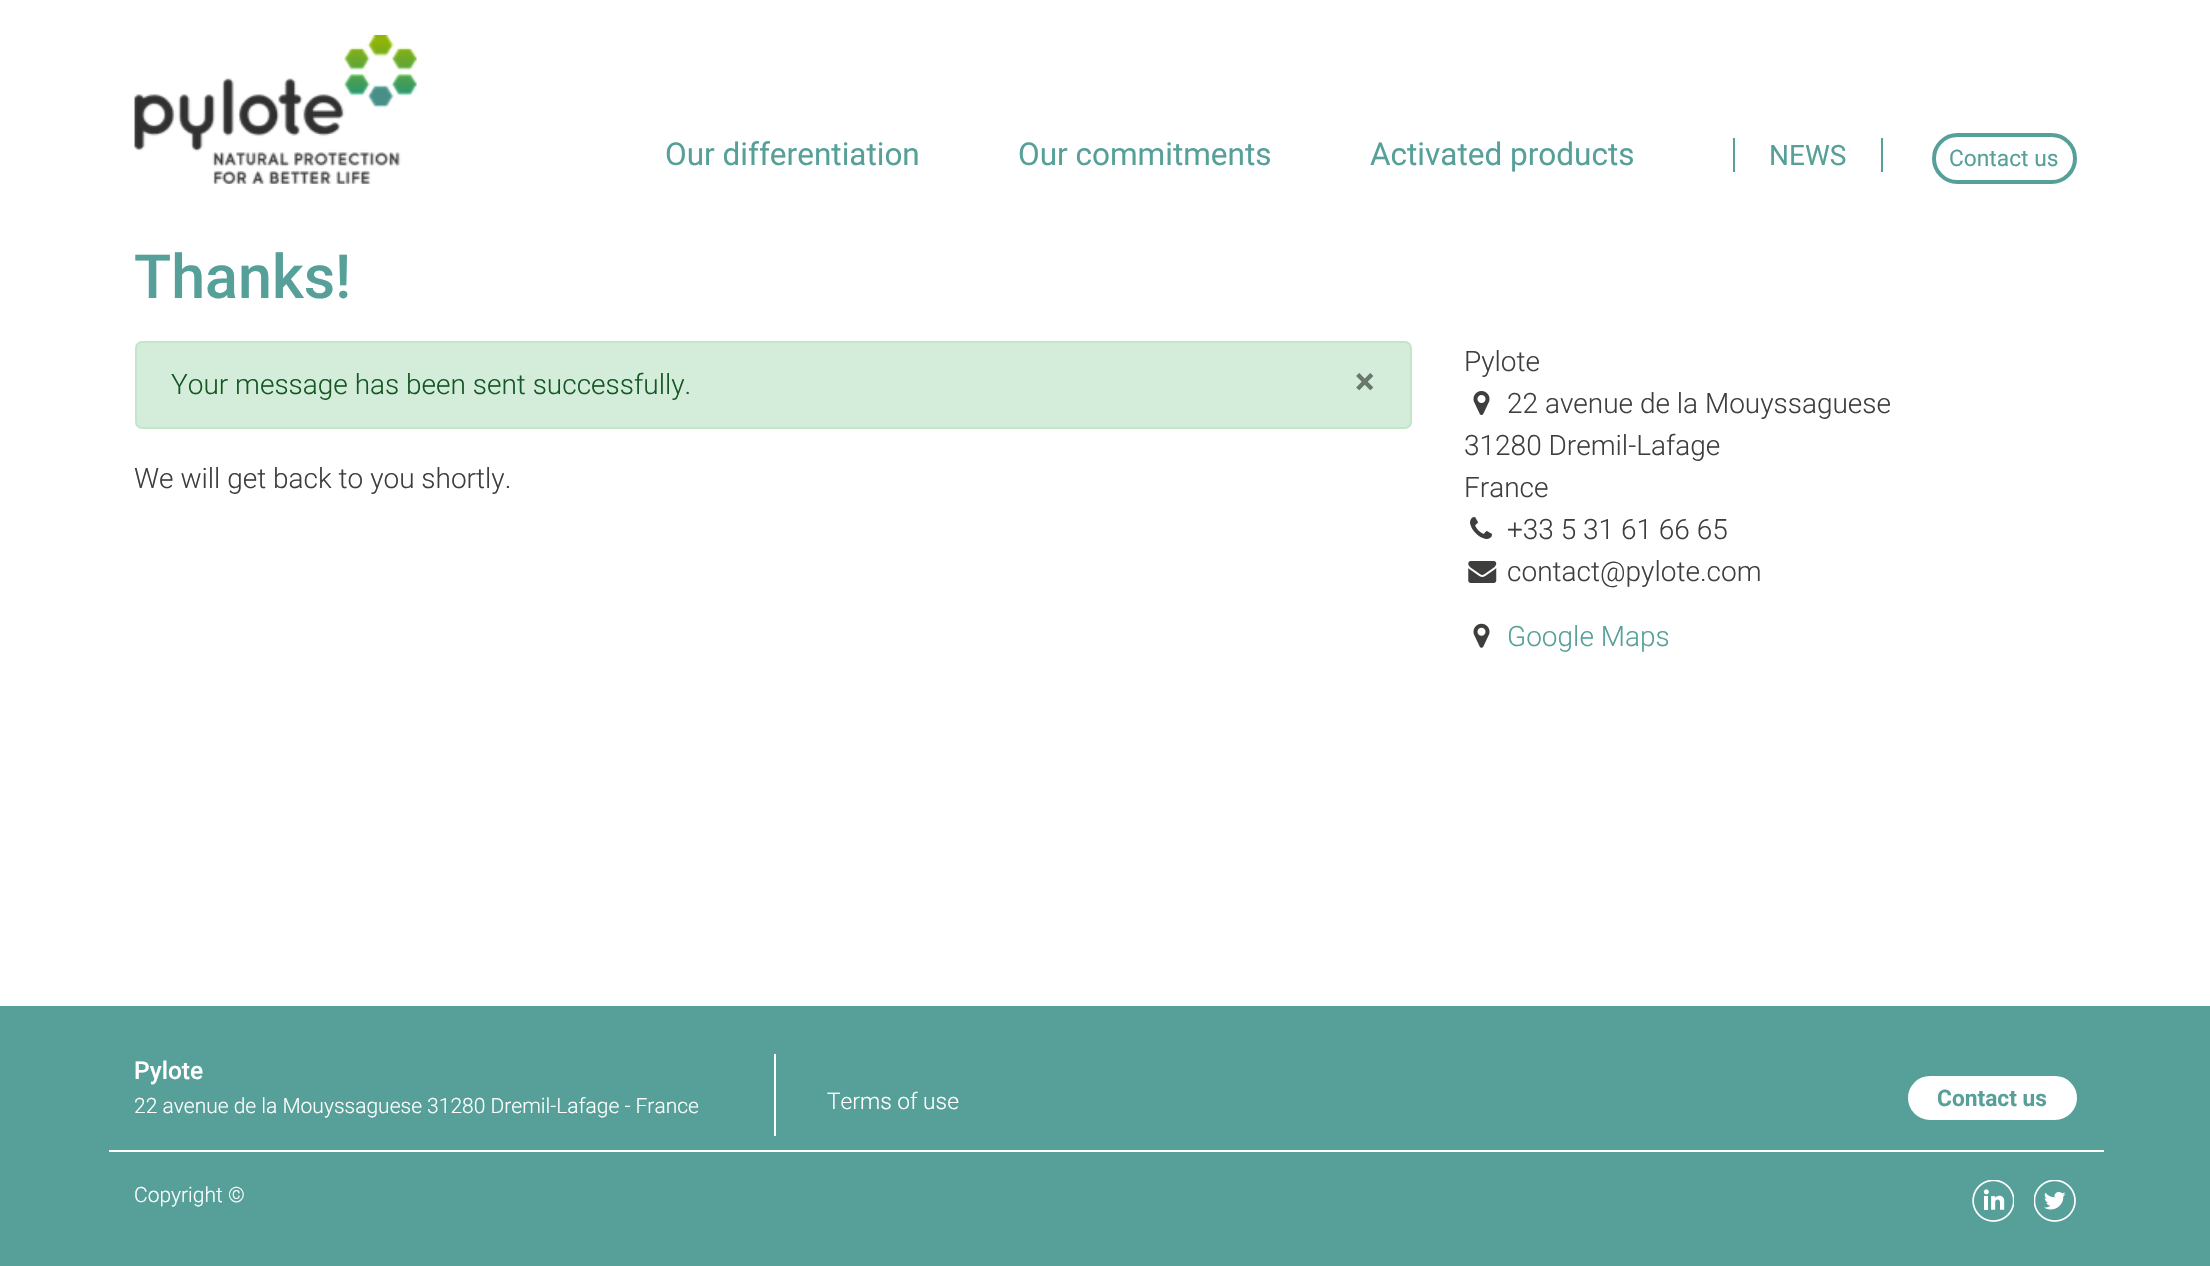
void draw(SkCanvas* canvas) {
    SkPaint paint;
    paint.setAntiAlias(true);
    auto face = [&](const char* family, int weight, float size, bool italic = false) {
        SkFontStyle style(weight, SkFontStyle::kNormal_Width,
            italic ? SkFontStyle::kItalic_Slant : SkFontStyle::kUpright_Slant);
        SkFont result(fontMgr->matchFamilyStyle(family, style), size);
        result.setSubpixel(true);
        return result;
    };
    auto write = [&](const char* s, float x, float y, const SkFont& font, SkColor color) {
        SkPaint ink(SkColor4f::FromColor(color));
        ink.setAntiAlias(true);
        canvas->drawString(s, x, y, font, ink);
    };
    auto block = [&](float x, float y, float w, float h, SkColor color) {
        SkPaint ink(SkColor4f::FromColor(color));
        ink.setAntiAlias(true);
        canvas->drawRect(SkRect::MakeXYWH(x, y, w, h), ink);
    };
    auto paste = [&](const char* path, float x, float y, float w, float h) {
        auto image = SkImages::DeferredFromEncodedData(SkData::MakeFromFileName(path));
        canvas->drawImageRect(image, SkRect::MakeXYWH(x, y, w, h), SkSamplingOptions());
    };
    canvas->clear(SK_ColorWHITE);
    paste("pic1.png", 134, 35, 283, 149);
    auto kFont1 = face("Roboto", 400, 31.5f);
    write("Our differentiation", 665, 165, kFont1, SkColorSetRGB(86, 160, 153));
    write("Our commitments", 1018, 165, kFont1, SkColorSetRGB(86, 160, 153));
    write("Activated products", 1370, 165, kFont1, SkColorSetRGB(86, 160, 153));
    auto kFont2 = face("Roboto", 400, 28);
    write("NEWS", 1769, 165, kFont2, SkColorSetRGB(86, 160, 153));
    block(1881, 138, 2, 34, SkColorSetRGB(86, 160, 153));
    block(1733, 138, 2, 34, SkColorSetRGB(86, 160, 153));
    paint.setStyle(SkPaint::kStroke_Style);
    paint.setStrokeWidth(4);
    paint.setColor(SkColorSetRGB(86, 160, 153));
    canvas->drawRoundRect(SkRect::MakeXYWH(1934, 135, 141, 47), 23.5f, 23.5f, paint);
    auto kFont3 = face("Roboto", 400, 22.75f);
    write("Contact us", 1949, 166, kFont3, SkColorSetRGB(86, 160, 153));
    auto kFont4 = face("Roboto", 500, 61);
    write("Thanks!", 134, 298, kFont4, SkColorSetRGB(86, 160, 153));
    paint.setStyle(SkPaint::kFill_Style);
    paint.setColor(SkColorSetRGB(212, 237, 218));
    canvas->drawRoundRect(SkRect::MakeXYWH(136, 342, 1275, 86), 6, 6, paint);
    paint.setStyle(SkPaint::kStroke_Style);
    paint.setStrokeWidth(2);
    paint.setColor(SkColorSetRGB(195, 230, 203));
    canvas->drawRoundRect(SkRect::MakeXYWH(136, 342, 1275, 86), 6, 6, paint);
    auto kFont5 = face("Roboto", 300, 28);
    write("Your message has been sent successfully.", 171, 394, kFont5, SkColorSetRGB(21, 87, 36));
    auto kFont6 = face("Roboto", 700, 37);
    write("×", 1355, 394, kFont6, SkColorSetRGB(106, 119, 109));
    write("We will get back to you shortly.", 134, 488, kFont5, SkColorSetRGB(62, 62, 61));
    write("Pylote", 1464, 371, kFont5, SkColorSetRGB(62, 62, 61));
    paste("pic2.png", 1473, 391, 17, 24);
    write("22 avenue de la Mouyssaguese", 1507, 413, kFont5, SkColorSetRGB(62, 62, 61));
    write("31280 Dremil-Lafage", 1464, 455, kFont5, SkColorSetRGB(62, 62, 61));
    write("France", 1464, 497, kFont5, SkColorSetRGB(62, 62, 61));
    paste("pic3.png", 1470, 517, 22, 22);
    write("+33 5 31 61 66 65", 1507, 539, kFont5, SkColorSetRGB(62, 62, 61));
    paste("pic4.png", 1468, 561, 29, 22);
    write("contact@pylote.com", 1507, 581, kFont5, SkColorSetRGB(62, 62, 61));
    paste("pic5.png", 1473, 623, 17, 25);
    write("Google Maps", 1507, 646, kFont5, SkColorSetRGB(86, 160, 153));
    block(0, 1006, 2210, 260, SkColorSetRGB(86, 160, 153));
    block(109, 1150, 1995, 2, SK_ColorWHITE);
    auto kFont7 = face("Roboto", 500, 24.5f);
    write("Pylote", 134, 1079, kFont7, SK_ColorWHITE);
    auto kFont8 = face("Roboto", 300, 21);
    write("22 avenue de la Mouyssaguese 31280 Dremil-Lafage - France", 134, 1113, kFont8, SK_ColorWHITE);
    block(774, 1054, 2, 82, SK_ColorWHITE);
    auto kFont9 = face("Roboto", 300, 22.75f);
    write("Terms of use", 827, 1109, kFont9, SK_ColorWHITE);
    paint.setStyle(SkPaint::kFill_Style);
    paint.setColor(SK_ColorWHITE);
    canvas->drawRoundRect(SkRect::MakeXYWH(1910, 1078, 165, 40), 20, 20, paint);
    paint.setStyle(SkPaint::kStroke_Style);
    paint.setStrokeWidth(4);
    canvas->drawRoundRect(SkRect::MakeXYWH(1910, 1078, 165, 40), 20, 20, paint);
    auto kFont10 = face("Roboto", 700, 22.75f);
    write("Contact us", 1937, 1106, kFont10, SkColorSetRGB(86, 160, 153));
    write("Copyright ©", 134, 1202, kFont8, SK_ColorWHITE);
    paste("pic6.png", 1972, 1180, 42, 42);
    paste("pic7.png", 2034, 1180, 42, 42);
}
